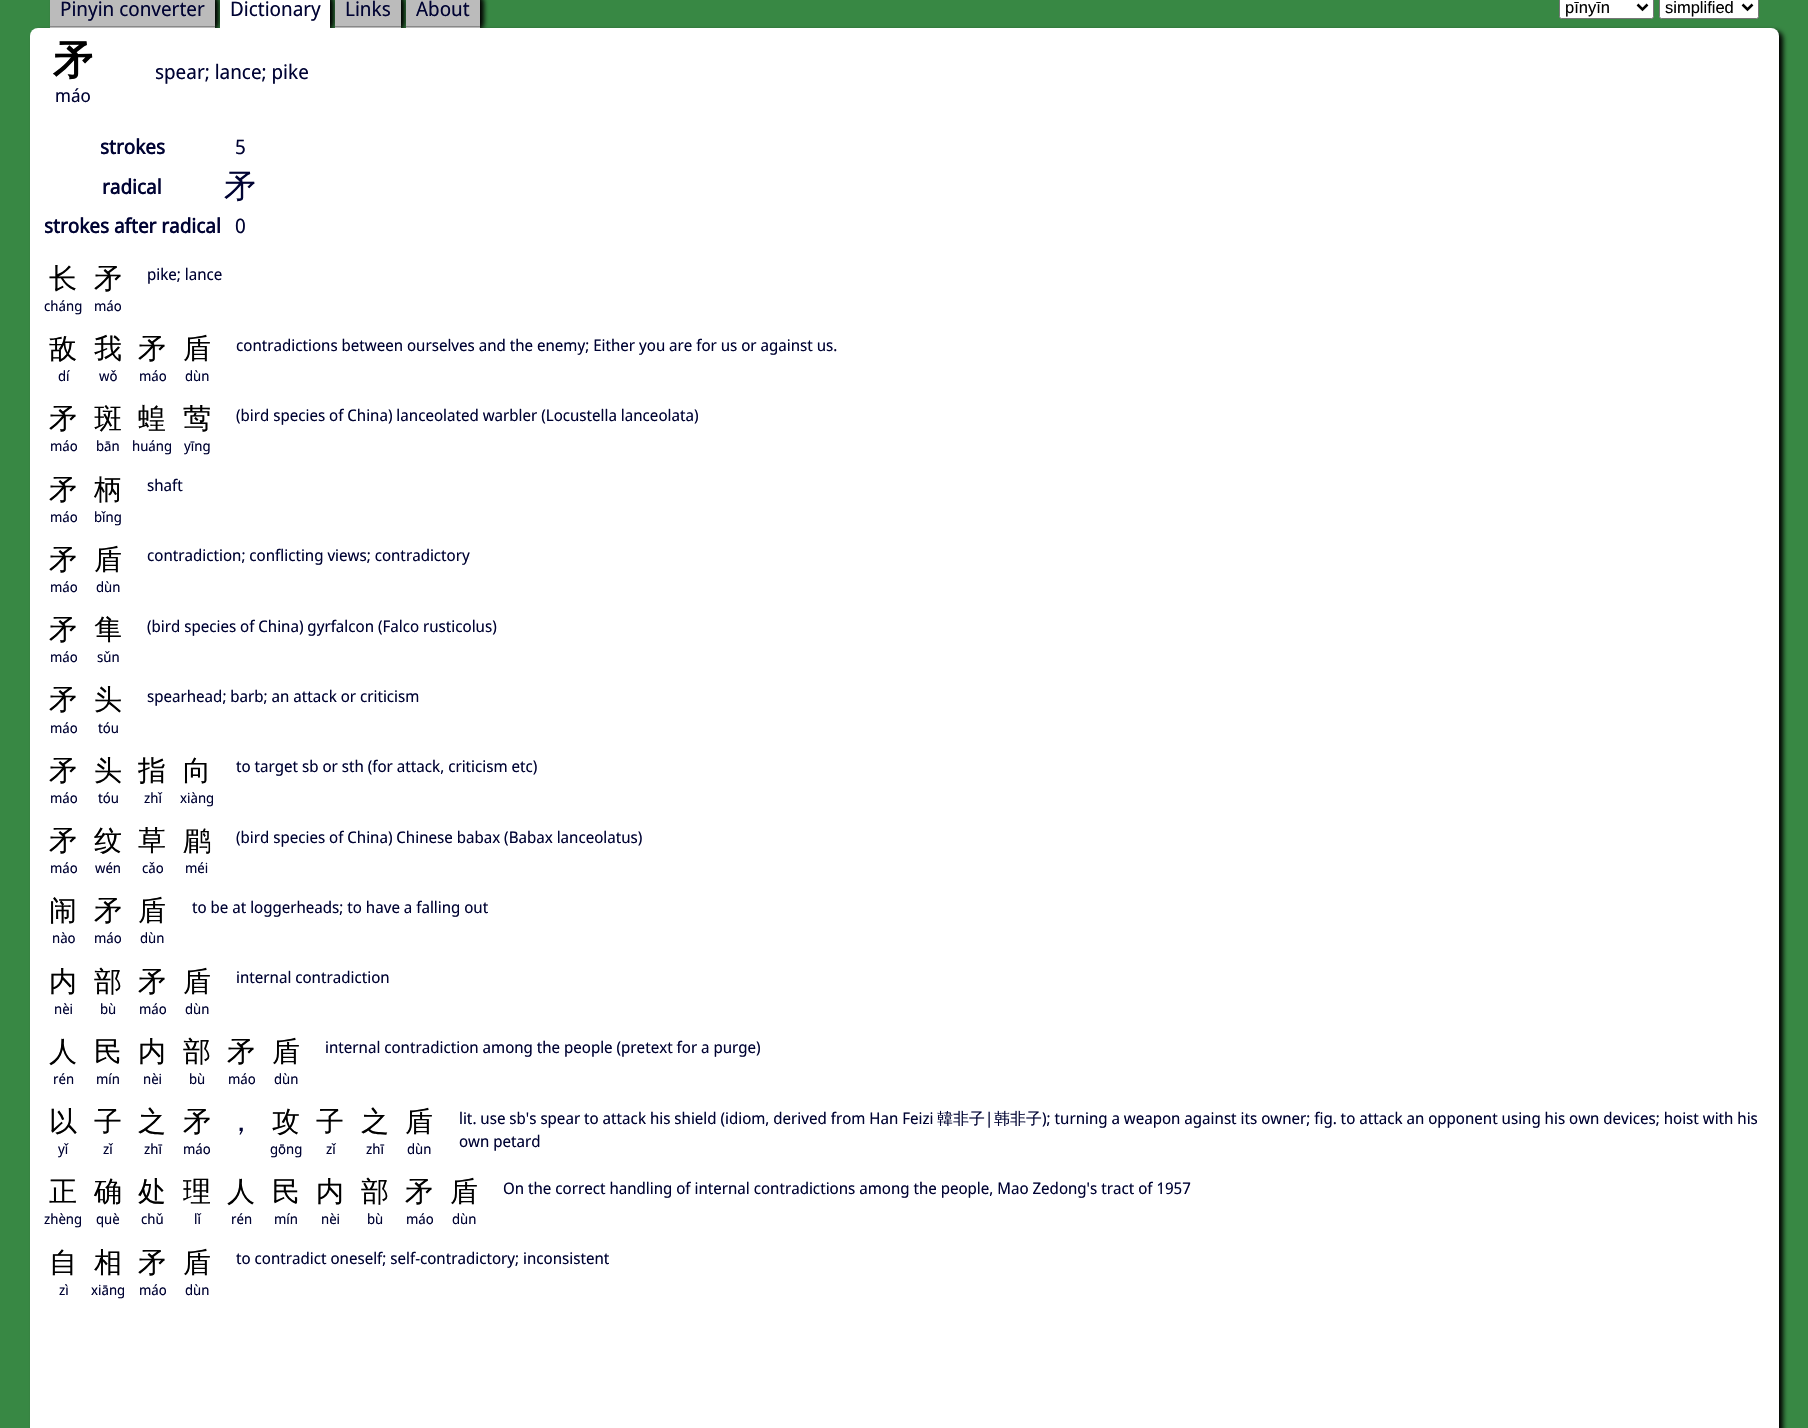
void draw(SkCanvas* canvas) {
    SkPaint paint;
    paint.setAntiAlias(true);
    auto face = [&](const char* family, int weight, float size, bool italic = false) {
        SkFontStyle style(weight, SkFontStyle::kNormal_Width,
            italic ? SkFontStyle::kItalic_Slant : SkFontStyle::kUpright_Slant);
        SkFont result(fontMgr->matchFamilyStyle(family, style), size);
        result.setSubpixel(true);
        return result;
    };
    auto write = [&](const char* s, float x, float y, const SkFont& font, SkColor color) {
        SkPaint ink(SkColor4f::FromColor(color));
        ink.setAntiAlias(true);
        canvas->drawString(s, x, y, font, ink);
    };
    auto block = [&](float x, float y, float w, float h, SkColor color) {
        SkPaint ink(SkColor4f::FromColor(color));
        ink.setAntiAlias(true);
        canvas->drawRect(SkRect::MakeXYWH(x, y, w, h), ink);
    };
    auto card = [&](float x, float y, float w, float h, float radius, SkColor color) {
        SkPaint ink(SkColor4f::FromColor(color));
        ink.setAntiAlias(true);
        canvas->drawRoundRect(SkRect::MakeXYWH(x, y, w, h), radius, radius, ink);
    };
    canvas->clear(SkColorSetRGB(56, 136, 68));
    paint.setColor(SK_ColorBLACK);
    paint.setMaskFilter(SkMaskFilter::MakeBlur(kNormal_SkBlurStyle, 2.5f));
    canvas->drawRoundRect(SkRect::MakeXYWH(34, 31, 1749, 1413), 8, 8, paint);
    paint.setMaskFilter(nullptr);
    card(30, 28, 1749, 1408, 8, SK_ColorWHITE);
    canvas->save();
    canvas->clipRect(SkRect::MakeXYWH(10, 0, 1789, 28));
    paint.setMaskFilter(SkMaskFilter::MakeBlur(kNormal_SkBlurStyle, 2.5f));
    canvas->drawRoundRect(SkRect::MakeXYWH(54, -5, 165, 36), 8, 8, paint);
    paint.setMaskFilter(nullptr);
    canvas->restore();
    block(50, 0, 165, 28, SkColorSetRGB(187, 187, 187));
    block(50, 26, 165, 1, SkColorSetRGB(136, 136, 136));
    auto kFont1 = face("Noto Sans Display", 400, 20);
    write("Pinyin converter", 60, 16, kFont1, SkColorSetRGB(0, 3, 51));
    canvas->save();
    canvas->clipRect(SkRect::MakeXYWH(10, 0, 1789, 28));
    paint.setMaskFilter(SkMaskFilter::MakeBlur(kNormal_SkBlurStyle, 2.5f));
    canvas->drawRoundRect(SkRect::MakeXYWH(224, -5, 110, 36), 8, 8, paint);
    paint.setMaskFilter(nullptr);
    canvas->restore();
    block(220, 0, 110, 28, SK_ColorWHITE);
    write("Dictionary", 230, 16, kFont1, SkColorSetRGB(0, 3, 51));
    canvas->save();
    canvas->clipRect(SkRect::MakeXYWH(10, 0, 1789, 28));
    paint.setMaskFilter(SkMaskFilter::MakeBlur(kNormal_SkBlurStyle, 2.5f));
    canvas->drawRoundRect(SkRect::MakeXYWH(339, -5, 66, 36), 8, 8, paint);
    paint.setMaskFilter(nullptr);
    canvas->restore();
    block(335, 0, 66, 28, SkColorSetRGB(187, 187, 187));
    block(335, 26, 66, 1, SkColorSetRGB(136, 136, 136));
    write("Links", 345, 16, kFont1, SkColorSetRGB(0, 3, 51));
    canvas->save();
    canvas->clipRect(SkRect::MakeXYWH(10, 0, 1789, 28));
    paint.setMaskFilter(SkMaskFilter::MakeBlur(kNormal_SkBlurStyle, 2.5f));
    canvas->drawRoundRect(SkRect::MakeXYWH(410, -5, 74, 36), 8, 8, paint);
    paint.setMaskFilter(nullptr);
    canvas->restore();
    block(406, 0, 74, 28, SkColorSetRGB(187, 187, 187));
    block(406, 26, 74, 1, SkColorSetRGB(136, 136, 136));
    write("About", 416, 16, kFont1, SkColorSetRGB(0, 3, 51));
    paint.setColor(SK_ColorWHITE);
    canvas->drawRoundRect(SkRect::MakeXYWH(1559.5f, -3.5f, 94, 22), 2, 2, paint);
    paint.setStyle(SkPaint::kStroke_Style);
    paint.setStrokeWidth(1);
    paint.setColor(SkColorSetRGB(118, 118, 118));
    canvas->drawRoundRect(SkRect::MakeXYWH(1559.5f, -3.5f, 94, 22), 2, 2, paint);
    paint.setStrokeWidth(2.5f);
    paint.setColor(SK_ColorBLACK);
    canvas->drawPath(SkPathBuilder().moveTo(1637.5f, 4.5f).lineTo(1642.5f, 9.5f).lineTo(1647.5f, 4.5f).detach(), paint);
    auto kFont2 = face("Liberation Sans", 400, 16.5f);
    write("pīnyīn", 1565, 13, kFont2, SK_ColorBLACK);
    paint.setStyle(SkPaint::kFill_Style);
    paint.setColor(SK_ColorWHITE);
    canvas->drawRoundRect(SkRect::MakeXYWH(1659.5f, -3.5f, 99, 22), 2, 2, paint);
    paint.setStyle(SkPaint::kStroke_Style);
    paint.setStrokeWidth(1);
    paint.setColor(SkColorSetRGB(118, 118, 118));
    canvas->drawRoundRect(SkRect::MakeXYWH(1659.5f, -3.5f, 99, 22), 2, 2, paint);
    paint.setStrokeWidth(2.5f);
    paint.setColor(SK_ColorBLACK);
    canvas->drawPath(SkPathBuilder().moveTo(1742.5f, 4.5f).lineTo(1747.5f, 9.5f).lineTo(1752.5f, 4.5f).detach(), paint);
    write("simplified", 1665, 13, kFont2, SK_ColorBLACK);
    auto kFont3 = face("WenQuanYi Zen Hei", 700, 40);
    write("矛", 53, 74, kFont3, SK_ColorBLACK);
    auto kFont4 = face("Noto Sans Display", 400, 18);
    write("máo", 55, 102, kFont4, SkColorSetRGB(0, 3, 51));
    write("spear; lance; pike", 155, 79, kFont1, SkColorSetRGB(0, 3, 51));
    auto kFont5 = face("Noto Sans Display", 700, 20);
    write("strokes", 100, 154, kFont5, SkColorSetRGB(0, 3, 51));
    write("5", 235, 154, kFont1, SkColorSetRGB(0, 3, 51));
    write("radical", 102, 194, kFont5, SkColorSetRGB(0, 3, 51));
    auto kFont6 = face("WenQuanYi Zen Hei", 500, 32);
    write("矛", 224, 197, kFont6, SkColorSetRGB(0, 3, 51));
    write("strokes after radical", 44, 233, kFont5, SkColorSetRGB(0, 3, 51));
    write("0", 235, 233, kFont1, SkColorSetRGB(0, 3, 51));
    auto kFont7 = face("WenQuanYi Zen Hei", 500, 28);
    write("长", 49, 288, kFont7, SK_ColorBLACK);
    write("矛", 94, 288, kFont7, SK_ColorBLACK);
    auto kFont8 = face("Noto Sans Display", 400, 14);
    write("cháng", 44, 311, kFont8, SkColorSetRGB(0, 3, 51));
    write("máo", 94, 311, kFont8, SkColorSetRGB(0, 3, 51));
    auto kFont9 = face("Noto Sans Display", 400, 16);
    write("pike; lance", 147, 280, kFont9, SkColorSetRGB(0, 3, 51));
    write("敌", 49, 358, kFont7, SK_ColorBLACK);
    write("我", 94, 358, kFont7, SK_ColorBLACK);
    write("矛", 138, 358, kFont7, SK_ColorBLACK);
    write("盾", 183, 358, kFont7, SK_ColorBLACK);
    write("dí", 58, 381, kFont8, SkColorSetRGB(0, 3, 51));
    write("wǒ", 99, 381, kFont8, SkColorSetRGB(0, 3, 51));
    write("máo", 139, 381, kFont8, SkColorSetRGB(0, 3, 51));
    write("dùn", 185, 381, kFont8, SkColorSetRGB(0, 3, 51));
    write("contradictions between ourselves and the enemy; Either you are for us or against us.", 236, 351, kFont9, SkColorSetRGB(0, 3, 51));
    write("矛", 49, 428, kFont7, SK_ColorBLACK);
    write("斑", 94, 428, kFont7, SK_ColorBLACK);
    write("蝗", 138, 428, kFont7, SK_ColorBLACK);
    write("莺", 183, 428, kFont7, SK_ColorBLACK);
    write("máo", 50, 451, kFont8, SkColorSetRGB(0, 3, 51));
    write("bān", 96, 451, kFont8, SkColorSetRGB(0, 3, 51));
    write("huáng", 132, 451, kFont8, SkColorSetRGB(0, 3, 51));
    write("yīng", 184, 451, kFont8, SkColorSetRGB(0, 3, 51));
    write("(bird species of China) lanceolated warbler (Locustella lanceolata)", 236, 421, kFont9, SkColorSetRGB(0, 3, 51));
    write("矛", 49, 499, kFont7, SK_ColorBLACK);
    write("柄", 94, 499, kFont7, SK_ColorBLACK);
    write("máo", 50, 522, kFont8, SkColorSetRGB(0, 3, 51));
    write("bǐng", 94, 522, kFont8, SkColorSetRGB(0, 3, 51));
    write("shaft", 147, 491, kFont9, SkColorSetRGB(0, 3, 51));
    write("矛", 49, 569, kFont7, SK_ColorBLACK);
    write("盾", 94, 569, kFont7, SK_ColorBLACK);
    write("máo", 50, 592, kFont8, SkColorSetRGB(0, 3, 51));
    write("dùn", 96, 592, kFont8, SkColorSetRGB(0, 3, 51));
    write("contradiction; conflicting views; contradictory", 147, 561, kFont9, SkColorSetRGB(0, 3, 51));
    write("矛", 49, 639, kFont7, SK_ColorBLACK);
    write("隼", 94, 639, kFont7, SK_ColorBLACK);
    write("máo", 50, 662, kFont8, SkColorSetRGB(0, 3, 51));
    write("sǔn", 97, 662, kFont8, SkColorSetRGB(0, 3, 51));
    write("(bird species of China) gyrfalcon (Falco rusticolus)", 147, 632, kFont9, SkColorSetRGB(0, 3, 51));
    write("矛", 49, 709, kFont7, SK_ColorBLACK);
    write("头", 94, 709, kFont7, SK_ColorBLACK);
    write("máo", 50, 733, kFont8, SkColorSetRGB(0, 3, 51));
    write("tóu", 98, 733, kFont8, SkColorSetRGB(0, 3, 51));
    write("spearhead; barb; an attack or criticism", 147, 702, kFont9, SkColorSetRGB(0, 3, 51));
    write("矛", 49, 780, kFont7, SK_ColorBLACK);
    write("头", 94, 780, kFont7, SK_ColorBLACK);
    write("指", 138, 780, kFont7, SK_ColorBLACK);
    write("向", 183, 780, kFont7, SK_ColorBLACK);
    write("máo", 50, 803, kFont8, SkColorSetRGB(0, 3, 51));
    write("tóu", 98, 803, kFont8, SkColorSetRGB(0, 3, 51));
    write("zhǐ", 144, 803, kFont8, SkColorSetRGB(0, 3, 51));
    write("xiàng", 180, 803, kFont8, SkColorSetRGB(0, 3, 51));
    write("to target sb or sth (for attack, criticism etc)", 236, 772, kFont9, SkColorSetRGB(0, 3, 51));
    write("矛", 49, 850, kFont7, SK_ColorBLACK);
    write("纹", 94, 850, kFont7, SK_ColorBLACK);
    write("草", 138, 850, kFont7, SK_ColorBLACK);
    write("鹛", 183, 850, kFont7, SK_ColorBLACK);
    write("máo", 50, 873, kFont8, SkColorSetRGB(0, 3, 51));
    write("wén", 95, 873, kFont8, SkColorSetRGB(0, 3, 51));
    write("cǎo", 142, 873, kFont8, SkColorSetRGB(0, 3, 51));
    write("méi", 185, 873, kFont8, SkColorSetRGB(0, 3, 51));
    write("(bird species of China) Chinese babax (Babax lanceolatus)", 236, 843, kFont9, SkColorSetRGB(0, 3, 51));
    write("闹", 49, 920, kFont7, SK_ColorBLACK);
    write("矛", 94, 920, kFont7, SK_ColorBLACK);
    write("盾", 138, 920, kFont7, SK_ColorBLACK);
    write("nào", 52, 943, kFont8, SkColorSetRGB(0, 3, 51));
    write("máo", 94, 943, kFont8, SkColorSetRGB(0, 3, 51));
    write("dùn", 140, 943, kFont8, SkColorSetRGB(0, 3, 51));
    write("to be at loggerheads; to have a falling out", 192, 913, kFont9, SkColorSetRGB(0, 3, 51));
    write("内", 49, 991, kFont7, SK_ColorBLACK);
    write("部", 94, 991, kFont7, SK_ColorBLACK);
    write("矛", 138, 991, kFont7, SK_ColorBLACK);
    write("盾", 183, 991, kFont7, SK_ColorBLACK);
    write("nèi", 54, 1014, kFont8, SkColorSetRGB(0, 3, 51));
    write("bù", 100, 1014, kFont8, SkColorSetRGB(0, 3, 51));
    write("máo", 139, 1014, kFont8, SkColorSetRGB(0, 3, 51));
    write("dùn", 185, 1014, kFont8, SkColorSetRGB(0, 3, 51));
    write("internal contradiction", 236, 983, kFont9, SkColorSetRGB(0, 3, 51));
    write("人", 49, 1061, kFont7, SK_ColorBLACK);
    write("民", 94, 1061, kFont7, SK_ColorBLACK);
    write("内", 138, 1061, kFont7, SK_ColorBLACK);
    write("部", 183, 1061, kFont7, SK_ColorBLACK);
    write("矛", 227, 1061, kFont7, SK_ColorBLACK);
    write("盾", 272, 1061, kFont7, SK_ColorBLACK);
    write("rén", 53, 1084, kFont8, SkColorSetRGB(0, 3, 51));
    write("mín", 96, 1084, kFont8, SkColorSetRGB(0, 3, 51));
    write("nèi", 143, 1084, kFont8, SkColorSetRGB(0, 3, 51));
    write("bù", 189, 1084, kFont8, SkColorSetRGB(0, 3, 51));
    write("máo", 228, 1084, kFont8, SkColorSetRGB(0, 3, 51));
    write("dùn", 274, 1084, kFont8, SkColorSetRGB(0, 3, 51));
    write("internal contradiction among the people (pretext for a purge)", 325, 1053, kFont9, SkColorSetRGB(0, 3, 51));
    write("以", 49, 1131, kFont7, SK_ColorBLACK);
    write("子", 94, 1131, kFont7, SK_ColorBLACK);
    write("之", 138, 1131, kFont7, SK_ColorBLACK);
    write("矛", 183, 1131, kFont7, SK_ColorBLACK);
    write("，", 227, 1131, kFont7, SkColorSetRGB(0, 3, 51));
    write("攻", 272, 1131, kFont7, SK_ColorBLACK);
    write("子", 316, 1131, kFont7, SK_ColorBLACK);
    write("之", 361, 1131, kFont7, SK_ColorBLACK);
    write("盾", 405, 1131, kFont7, SK_ColorBLACK);
    write("yǐ", 58, 1154, kFont8, SkColorSetRGB(0, 3, 51));
    write("zǐ", 103, 1154, kFont8, SkColorSetRGB(0, 3, 51));
    write("zhī", 144, 1154, kFont8, SkColorSetRGB(0, 3, 51));
    write("máo", 183, 1154, kFont8, SkColorSetRGB(0, 3, 51));
    write("gōng", 270, 1154, kFont8, SkColorSetRGB(0, 3, 51));
    write("zǐ", 326, 1154, kFont8, SkColorSetRGB(0, 3, 51));
    write("zhī", 366, 1154, kFont8, SkColorSetRGB(0, 3, 51));
    write("dùn", 407, 1154, kFont8, SkColorSetRGB(0, 3, 51));
    write("lit. use sb's spear to attack his shield (idiom, derived from Han Feizi", 459, 1124, kFont9, SkColorSetRGB(0, 3, 51));
    auto kFont10 = face("WenQuanYi Zen Hei", 500, 16);
    write("韓非子", 937, 1124, kFont10, SkColorSetRGB(0, 3, 51));
    write("|", 985, 1124, kFont9, SkColorSetRGB(0, 3, 51));
    write("韩非子", 994, 1124, kFont10, SkColorSetRGB(0, 3, 51));
    write("); turning a weapon against its owner; fig. to attack an opponent using his own devices; hoist with his", 1042, 1124, kFont9, SkColorSetRGB(0, 3, 51));
    write("own petard", 459, 1147, kFont9, SkColorSetRGB(0, 3, 51));
    write("正", 49, 1201, kFont7, SK_ColorBLACK);
    write("确", 94, 1201, kFont7, SK_ColorBLACK);
    write("处", 138, 1201, kFont7, SK_ColorBLACK);
    write("理", 183, 1201, kFont7, SK_ColorBLACK);
    write("人", 227, 1201, kFont7, SK_ColorBLACK);
    write("民", 272, 1201, kFont7, SK_ColorBLACK);
    write("内", 316, 1201, kFont7, SK_ColorBLACK);
    write("部", 361, 1201, kFont7, SK_ColorBLACK);
    write("矛", 405, 1201, kFont7, SK_ColorBLACK);
    write("盾", 450, 1201, kFont7, SK_ColorBLACK);
    write("zhèng", 44, 1224, kFont8, SkColorSetRGB(0, 3, 51));
    write("què", 96, 1224, kFont8, SkColorSetRGB(0, 3, 51));
    write("chǔ", 141, 1224, kFont8, SkColorSetRGB(0, 3, 51));
    write("lǐ", 194, 1224, kFont8, SkColorSetRGB(0, 3, 51));
    write("rén", 231, 1224, kFont8, SkColorSetRGB(0, 3, 51));
    write("mín", 274, 1224, kFont8, SkColorSetRGB(0, 3, 51));
    write("nèi", 321, 1224, kFont8, SkColorSetRGB(0, 3, 51));
    write("bù", 367, 1224, kFont8, SkColorSetRGB(0, 3, 51));
    write("máo", 406, 1224, kFont8, SkColorSetRGB(0, 3, 51));
    write("dùn", 452, 1224, kFont8, SkColorSetRGB(0, 3, 51));
    write("On the correct handling of internal contradictions among the people, Mao Zedong's tract of 1957", 503, 1194, kFont9, SkColorSetRGB(0, 3, 51));
    write("自", 49, 1272, kFont7, SK_ColorBLACK);
    write("相", 94, 1272, kFont7, SK_ColorBLACK);
    write("矛", 138, 1272, kFont7, SK_ColorBLACK);
    write("盾", 183, 1272, kFont7, SK_ColorBLACK);
    write("zì", 59, 1295, kFont8, SkColorSetRGB(0, 3, 51));
    write("xiāng", 91, 1295, kFont8, SkColorSetRGB(0, 3, 51));
    write("máo", 139, 1295, kFont8, SkColorSetRGB(0, 3, 51));
    write("dùn", 185, 1295, kFont8, SkColorSetRGB(0, 3, 51));
    write("to contradict oneself; self-contradictory; inconsistent", 236, 1264, kFont9, SkColorSetRGB(0, 3, 51));
}
